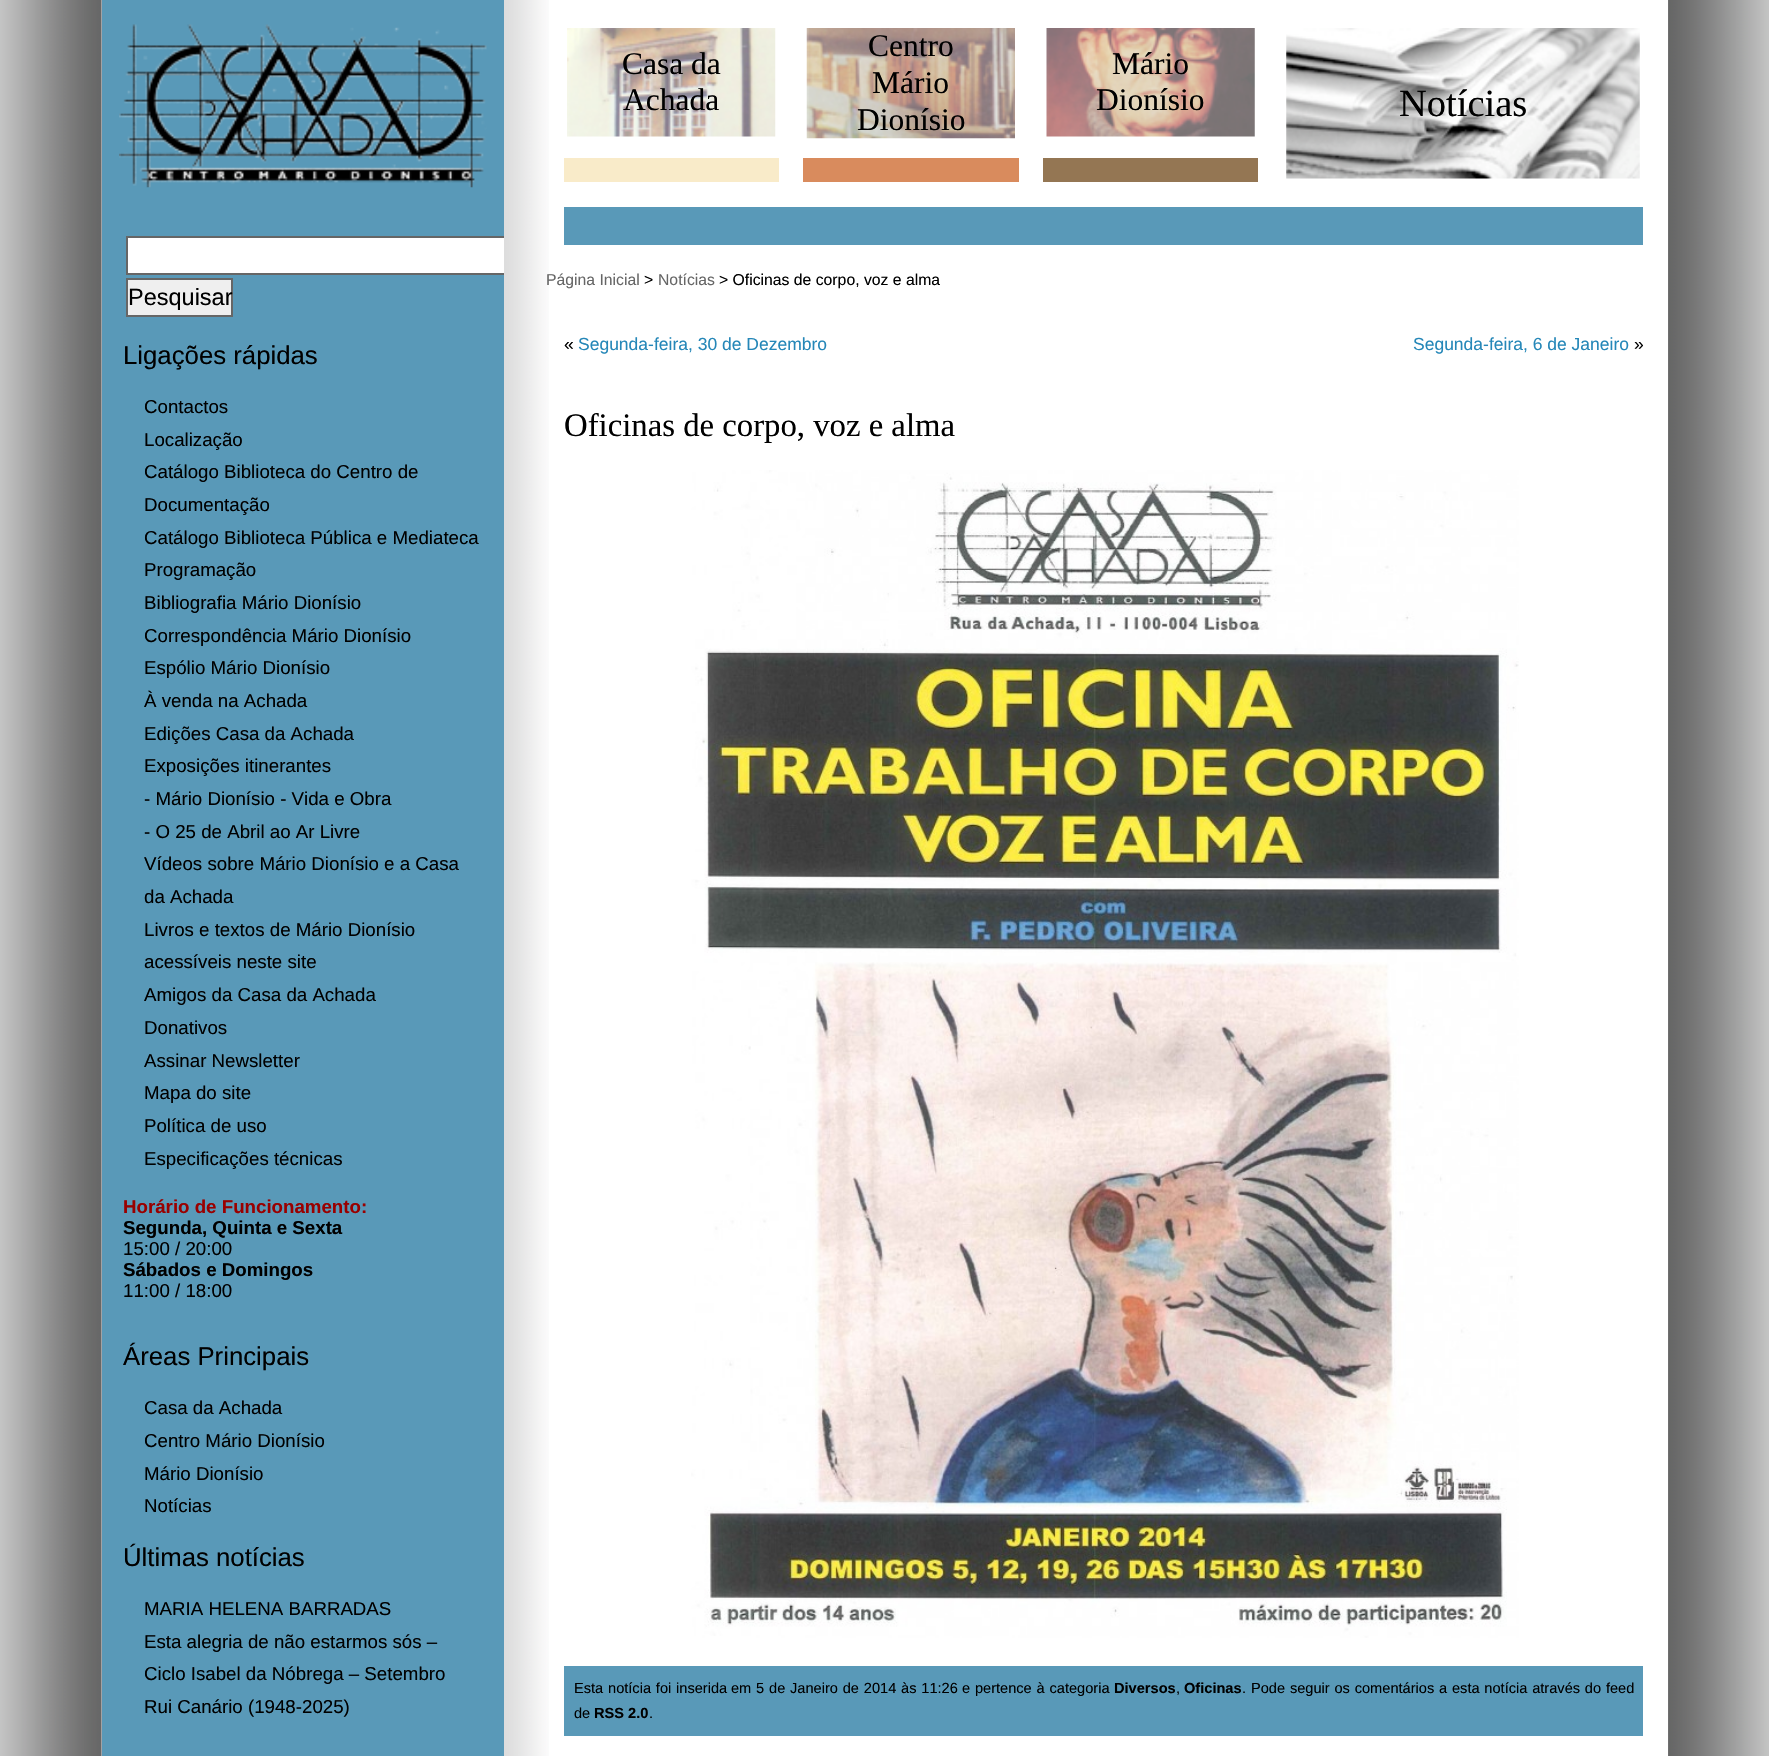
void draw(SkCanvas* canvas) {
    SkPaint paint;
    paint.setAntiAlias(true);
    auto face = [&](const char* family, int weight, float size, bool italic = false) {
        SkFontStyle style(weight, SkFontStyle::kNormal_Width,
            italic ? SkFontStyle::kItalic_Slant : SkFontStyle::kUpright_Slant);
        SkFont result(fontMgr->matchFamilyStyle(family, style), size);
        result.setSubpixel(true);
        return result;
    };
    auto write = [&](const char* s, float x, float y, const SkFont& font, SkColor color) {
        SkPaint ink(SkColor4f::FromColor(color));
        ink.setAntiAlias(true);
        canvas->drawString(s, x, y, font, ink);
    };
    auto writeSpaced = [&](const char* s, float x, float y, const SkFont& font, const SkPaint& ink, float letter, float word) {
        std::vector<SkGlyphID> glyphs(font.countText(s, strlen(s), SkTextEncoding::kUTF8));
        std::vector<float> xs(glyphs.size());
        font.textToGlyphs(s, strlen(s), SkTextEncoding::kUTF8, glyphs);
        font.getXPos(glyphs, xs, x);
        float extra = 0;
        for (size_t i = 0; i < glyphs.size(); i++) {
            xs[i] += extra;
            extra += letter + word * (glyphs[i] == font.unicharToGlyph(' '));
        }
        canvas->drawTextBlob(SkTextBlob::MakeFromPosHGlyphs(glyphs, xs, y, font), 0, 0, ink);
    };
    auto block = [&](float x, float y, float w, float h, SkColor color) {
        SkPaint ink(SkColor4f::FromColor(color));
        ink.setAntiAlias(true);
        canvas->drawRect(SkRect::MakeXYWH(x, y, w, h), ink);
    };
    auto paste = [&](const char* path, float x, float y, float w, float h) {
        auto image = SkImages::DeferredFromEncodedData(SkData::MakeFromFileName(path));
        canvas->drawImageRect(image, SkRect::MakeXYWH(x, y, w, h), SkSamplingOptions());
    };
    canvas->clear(SkColorSetRGB(222, 222, 222));
    paste("pic1.png", 0, 0, 1769, 1756);
    block(102, 0, 402, 1756, SkColorSetRGB(89, 153, 184));
    paste("pic2.png", 119, 24, 368, 164);
    block(128, 238, 376, 35, SK_ColorWHITE);
    paint.setStyle(SkPaint::kStroke_Style);
    paint.setStrokeWidth(2);
    paint.setColor(SkColorSetRGB(102, 102, 102));
    canvas->drawRect(SkRect::MakeXYWH(127, 237, 381, 37), paint);
    paint.setStyle(SkPaint::kFill_Style);
    paint.setColor(SkColorSetRGB(239, 239, 239));
    canvas->drawRect(SkRect::MakeXYWH(127, 279, 105, 37), paint);
    paint.setStyle(SkPaint::kStroke_Style);
    paint.setColor(SkColorSetRGB(102, 102, 102));
    canvas->drawRect(SkRect::MakeXYWH(127, 279, 105, 37), paint);
    auto kFont1 = face("Liberation Sans", 400, 23.5f);
    write("Pesquisar", 128, 305, kFont1, SK_ColorBLACK);
    auto kFont2 = face("Liberation Sans", 400, 25.75f);
    write("Ligações rápidas", 123, 364, kFont2, SK_ColorBLACK);
    auto kFont3 = face("Liberation Sans", 400, 18.7f);
    write("Contactos", 144, 413, kFont3, SK_ColorBLACK);
    write("Localização", 144, 446, kFont3, SK_ColorBLACK);
    write("Catálogo Biblioteca do Centro de", 144, 478, kFont3, SK_ColorBLACK);
    write("Documentação", 144, 511, kFont3, SK_ColorBLACK);
    write("Catálogo Biblioteca Pública e Mediateca", 144, 544, kFont3, SK_ColorBLACK);
    write("Programação", 144, 576, kFont3, SK_ColorBLACK);
    write("Bibliografia Mário Dionísio", 144, 609, kFont3, SK_ColorBLACK);
    write("Correspondência Mário Dionísio", 144, 642, kFont3, SK_ColorBLACK);
    write("Espólio Mário Dionísio", 144, 674, kFont3, SK_ColorBLACK);
    write("À venda na Achada", 144, 707, kFont3, SK_ColorBLACK);
    write("Edições Casa da Achada", 144, 740, kFont3, SK_ColorBLACK);
    write("Exposições itinerantes", 144, 772, kFont3, SK_ColorBLACK);
    write("- Mário Dionísio - Vida e Obra", 144, 805, kFont3, SK_ColorBLACK);
    write("- O 25 de Abril ao Ar Livre", 144, 838, kFont3, SK_ColorBLACK);
    write("Vídeos sobre Mário Dionísio e a Casa", 144, 870, kFont3, SK_ColorBLACK);
    write("da Achada", 144, 903, kFont3, SK_ColorBLACK);
    write("Livros e textos de Mário Dionísio", 144, 936, kFont3, SK_ColorBLACK);
    write("acessíveis neste site", 144, 968, kFont3, SK_ColorBLACK);
    write("Amigos da Casa da Achada", 144, 1001, kFont3, SK_ColorBLACK);
    write("Donativos", 144, 1034, kFont3, SK_ColorBLACK);
    write("Assinar Newsletter", 144, 1067, kFont3, SK_ColorBLACK);
    write("Mapa do site", 144, 1099, kFont3, SK_ColorBLACK);
    write("Política de uso", 144, 1132, kFont3, SK_ColorBLACK);
    write("Especificações técnicas", 144, 1165, kFont3, SK_ColorBLACK);
    auto kFont4 = face("Liberation Sans", 700, 18.7f);
    write("Horário de Funcionamento:", 123, 1213, kFont4, SkColorSetRGB(153, 0, 0));
    write("Segunda, Quinta e Sexta", 123, 1234, kFont4, SK_ColorBLACK);
    write("15:00 / 20:00", 123, 1255, kFont3, SK_ColorBLACK);
    write("Sábados e Domingos", 123, 1276, kFont4, SK_ColorBLACK);
    write("11:00 / 18:00", 123, 1297, kFont3, SK_ColorBLACK);
    write("Áreas Principais", 123, 1365, kFont2, SK_ColorBLACK);
    write("Casa da Achada", 144, 1414, kFont3, SK_ColorBLACK);
    write("Centro Mário Dionísio", 144, 1447, kFont3, SK_ColorBLACK);
    write("Mário Dionísio", 144, 1480, kFont3, SK_ColorBLACK);
    write("Notícias", 144, 1512, kFont3, SK_ColorBLACK);
    write("Últimas notícias", 123, 1566, kFont2, SK_ColorBLACK);
    write("MARIA HELENA BARRADAS", 144, 1615, kFont3, SK_ColorBLACK);
    write("Esta alegria de não estarmos sós –", 144, 1648, kFont3, SK_ColorBLACK);
    write("Ciclo Isabel da Nóbrega – Setembro", 144, 1680, kFont3, SK_ColorBLACK);
    write("Rui Canário (1948-2025)", 144, 1713, kFont3, SK_ColorBLACK);
    block(549, 0, 1119, 1756, SK_ColorWHITE);
    paste("pic3.png", 504, 0, 45, 1756);
    paste("pic4.png", 567, 28, 209, 109);
    auto kFont5 = face("Liberation Serif", 400, 31.5f);
    write("Casa da", 622, 74, kFont5, SK_ColorBLACK);
    write("Achada", 623, 110, kFont5, SK_ColorBLACK);
    block(564, 158, 215, 24, SkColorSetRGB(249, 235, 201));
    block(564, 207, 1079, 38, SkColorSetRGB(89, 153, 184));
    paste("pic5.png", 806, 28, 209, 111);
    write("Centro", 868, 56, kFont5, SK_ColorBLACK);
    write("Mário", 872, 93, kFont5, SK_ColorBLACK);
    write("Dionísio", 857, 130, kFont5, SK_ColorBLACK);
    block(803, 158, 216, 24, SkColorSetRGB(217, 139, 93));
    paste("pic6.png", 1046, 28, 209, 109);
    write("Mário", 1112, 74, kFont5, SK_ColorBLACK);
    write("Dionísio", 1096, 110, kFont5, SK_ColorBLACK);
    block(1043, 158, 215, 24, SkColorSetRGB(148, 118, 83));
    paste("pic7.png", 1286, 28, 354, 151);
    auto kFont6 = face("Liberation Serif", 400, 38.5f);
    write("Notícias", 1399, 116, kFont6, SK_ColorBLACK);
    auto kFont7 = face("Liberation Sans", 400, 15.75f);
    write("Página Inicial", 546, 285, kFont7, SkColorSetRGB(102, 102, 102));
    write(">", 644, 285, kFont7, SK_ColorBLACK);
    write("Notícias", 658, 285, kFont7, SkColorSetRGB(102, 102, 102));
    write("> Oficinas de corpo, voz e alma", 719, 285, kFont7, SK_ColorBLACK);
    auto kFont8 = face("Liberation Sans", 400, 17.5f);
    write("«", 564, 350, kFont8, SK_ColorBLACK);
    write("Segunda-feira, 30 de Dezembro", 578, 350, kFont8, SkColorSetRGB(37, 135, 184));
    write("Segunda-feira, 6 de Janeiro", 1413, 350, kFont8, SkColorSetRGB(37, 135, 184));
    write("»", 1634, 350, kFont8, SK_ColorBLACK);
    auto kFont9 = face("Liberation Serif", 400, 32.75f);
    write("Oficinas de corpo, voz e alma", 564, 436, kFont9, SK_ColorBLACK);
    paste("pic8.png", 691, 470, 828, 1168);
    block(564, 1666, 1079, 70, SkColorSetRGB(89, 153, 184));
    auto kFont10 = face("Liberation Sans", 400, 14.6f);
    paint.setStyle(SkPaint::kFill_Style);
    paint.setColor(SK_ColorBLACK);
    writeSpaced("Esta notícia foi inserida", 574, 1693, kFont10, paint, 0, 0.75f);
    writeSpaced("em 5 de Janeiro de 2014 às 11:26", 731, 1693, kFont10, paint, 0, 0.75f);
    writeSpaced("e pertence à categoria", 962, 1693, kFont10, paint, 0, 0.75f);
    auto kFont11 = face("Liberation Sans", 700, 14.6f);
    write("Diversos", 1114, 1693, kFont11, SK_ColorBLACK);
    write(",", 1176, 1693, kFont10, SK_ColorBLACK);
    write("Oficinas", 1184, 1693, kFont11, SK_ColorBLACK);
    write(".", 1242, 1693, kFont10, SK_ColorBLACK);
    writeSpaced("Pode seguir os comentários a esta notícia através do feed", 1251, 1693, kFont10, paint, 0, 0.75f);
    write("de", 574, 1718, kFont10, SK_ColorBLACK);
    write("RSS 2.0", 594, 1718, kFont11, SK_ColorBLACK);
    write(".", 649, 1718, kFont10, SK_ColorBLACK);
}
